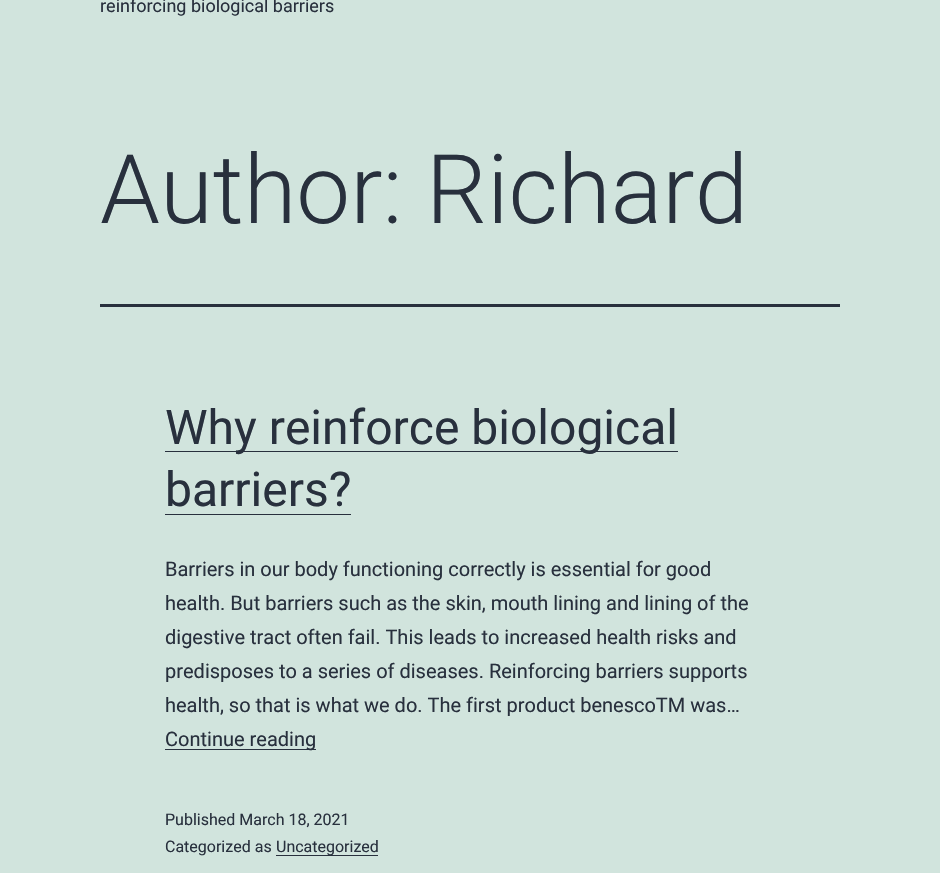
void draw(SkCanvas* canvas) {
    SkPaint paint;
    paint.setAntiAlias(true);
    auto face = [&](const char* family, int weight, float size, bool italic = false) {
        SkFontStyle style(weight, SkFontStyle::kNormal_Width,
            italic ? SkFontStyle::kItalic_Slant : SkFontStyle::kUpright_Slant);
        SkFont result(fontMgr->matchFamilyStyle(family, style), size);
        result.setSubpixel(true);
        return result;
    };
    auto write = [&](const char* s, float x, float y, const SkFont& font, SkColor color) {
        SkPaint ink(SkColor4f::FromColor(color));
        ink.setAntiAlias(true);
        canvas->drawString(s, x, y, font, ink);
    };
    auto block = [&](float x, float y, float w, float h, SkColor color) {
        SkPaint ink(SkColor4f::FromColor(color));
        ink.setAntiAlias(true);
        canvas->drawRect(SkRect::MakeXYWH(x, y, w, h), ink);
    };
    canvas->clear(SkColorSetRGB(209, 228, 221));
    auto kFont1 = face("Roboto", 400, 18);
    write("reinforcing biological barriers", 100, 12, kFont1, SkColorSetRGB(40, 48, 61));
    block(100, 304, 740, 3, SkColorSetRGB(40, 48, 61));
    auto kFont2 = face("Roboto", 300, 96);
    write("Author: Richard", 100, 223, kFont2, SkColorSetRGB(40, 48, 61));
    block(165, 451, 513, 1, SkColorSetRGB(40, 48, 61));
    auto kFont3 = face("Roboto", 400, 48);
    write("Why reinforce biological", 165, 444, kFont3, SkColorSetRGB(40, 48, 61));
    write("barriers?", 165, 506, kFont3, SkColorSetRGB(40, 48, 61));
    block(165, 514, 186, 1, SkColorSetRGB(40, 48, 61));
    auto kFont4 = face("Roboto", 400, 20);
    write("Barriers in our body functioning correctly is essential for good", 165, 576, kFont4, SkColorSetRGB(40, 48, 61));
    write("health. But barriers such as the skin, mouth lining and lining of the", 165, 610, kFont4, SkColorSetRGB(40, 48, 61));
    write("digestive tract often fail. This leads to increased health risks and", 165, 644, kFont4, SkColorSetRGB(40, 48, 61));
    write("predisposes to a series of diseases. Reinforcing barriers supports", 165, 678, kFont4, SkColorSetRGB(40, 48, 61));
    write("health, so that is what we do. The first product benescoTM was…", 165, 712, kFont4, SkColorSetRGB(40, 48, 61));
    block(165, 749, 151, 1, SkColorSetRGB(40, 48, 61));
    write("Continue reading", 165, 746, kFont4, SkColorSetRGB(40, 48, 61));
    auto kFont5 = face("Roboto", 400, 16);
    write("Published March 18, 2021", 165, 825, kFont5, SkColorSetRGB(40, 48, 61));
    write("Categorized as", 165, 852, kFont5, SkColorSetRGB(40, 48, 61));
    block(276, 855, 102, 1, SkColorSetRGB(40, 48, 61));
    write("Uncategorized", 276, 852, kFont5, SkColorSetRGB(40, 48, 61));
}
